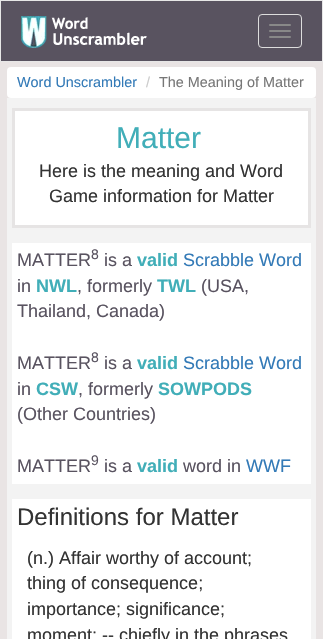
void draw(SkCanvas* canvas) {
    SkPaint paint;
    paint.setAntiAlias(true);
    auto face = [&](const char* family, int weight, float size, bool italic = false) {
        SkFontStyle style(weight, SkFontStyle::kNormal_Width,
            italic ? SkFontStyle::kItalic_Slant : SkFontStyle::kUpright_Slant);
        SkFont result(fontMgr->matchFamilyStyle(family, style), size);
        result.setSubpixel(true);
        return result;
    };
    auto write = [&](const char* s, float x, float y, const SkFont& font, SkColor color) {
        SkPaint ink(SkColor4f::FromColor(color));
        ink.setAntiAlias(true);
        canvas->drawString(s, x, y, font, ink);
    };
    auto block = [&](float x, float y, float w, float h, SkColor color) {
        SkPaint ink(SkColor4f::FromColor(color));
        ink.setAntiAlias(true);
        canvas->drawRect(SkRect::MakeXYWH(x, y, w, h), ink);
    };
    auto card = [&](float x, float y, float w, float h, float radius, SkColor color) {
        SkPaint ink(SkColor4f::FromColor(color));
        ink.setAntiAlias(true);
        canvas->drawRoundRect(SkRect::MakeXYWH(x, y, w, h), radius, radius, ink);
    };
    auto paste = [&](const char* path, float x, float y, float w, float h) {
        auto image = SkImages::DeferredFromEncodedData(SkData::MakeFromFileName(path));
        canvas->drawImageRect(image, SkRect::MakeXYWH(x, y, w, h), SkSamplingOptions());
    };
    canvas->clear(SkColorSetRGB(233, 228, 228));
    paint.setColor(SkColorSetRGB(89, 83, 96));
    canvas->drawRect(SkRect::MakeXYWH(0.5f, 0.5f, 322, 61), paint);
    paint.setStyle(SkPaint::kStroke_Style);
    paint.setStrokeWidth(1);
    paint.setColor(SkColorSetRGB(231, 231, 231));
    canvas->drawRect(SkRect::MakeXYWH(0.5f, 0.5f, 322, 61), paint);
    paste("pic1.png", 21, 16, 126, 32);
    paint.setColor(SkColorSetRGB(221, 221, 221));
    canvas->drawRoundRect(SkRect::MakeXYWH(258.5f, 14.5f, 43, 33), 3.5f, 3.5f, paint);
    card(269, 24, 22, 2, 1, SkColorSetRGB(136, 136, 136));
    card(269, 30, 22, 2, 1, SkColorSetRGB(136, 136, 136));
    card(269, 36, 22, 2, 1, SkColorSetRGB(136, 136, 136));
    card(7, 67, 309, 31, 4, SK_ColorWHITE);
    auto kFont1 = face("Liberation Sans", 400, 14.4f);
    write("Word Unscrambler", 17, 87, kFont1, SkColorSetRGB(51, 122, 183));
    write("/", 146, 87, kFont1, SkColorSetRGB(204, 204, 204));
    write("The Meaning of Matter", 159, 87, kFont1, SkColorSetRGB(119, 119, 119));
    block(7, 98, 309, 541, SkColorSetRGB(243, 243, 243));
    paint.setStyle(SkPaint::kFill_Style);
    paint.setColor(SK_ColorWHITE);
    canvas->drawRect(SkRect::MakeXYWH(13.5f, 109.5f, 296, 117), paint);
    paint.setStyle(SkPaint::kStroke_Style);
    paint.setStrokeWidth(3);
    paint.setColor(SkColorSetRGB(230, 228, 228));
    canvas->drawRect(SkRect::MakeXYWH(13.5f, 109.5f, 296, 117), paint);
    auto kFont2 = face("Liberation Sans", 400, 30);
    write("Matter", 116, 148, kFont2, SkColorSetRGB(65, 174, 184));
    auto kFont3 = face("Liberation Sans", 400, 18);
    write("Here is the meaning and Word", 39, 177, kFont3, SkColorSetRGB(51, 51, 51));
    write("Game information for Matter", 49, 202, kFont3, SkColorSetRGB(51, 51, 51));
    block(12, 243, 299, 241, SK_ColorWHITE);
    write("MATTER", 17, 266, kFont3, SkColorSetRGB(89, 83, 96));
    auto kFont4 = face("Liberation Sans", 400, 14);
    write("8", 91, 259, kFont4, SkColorSetRGB(89, 83, 96));
    write("is a", 104, 266, kFont3, SkColorSetRGB(89, 83, 96));
    auto kFont5 = face("Liberation Sans", 700, 18);
    write("valid", 137, 266, kFont5, SkColorSetRGB(65, 174, 184));
    write("Scrabble Word", 183, 266, kFont3, SkColorSetRGB(51, 122, 183));
    write("in", 17, 292, kFont3, SkColorSetRGB(89, 83, 96));
    write("NWL", 36, 292, kFont5, SkColorSetRGB(65, 174, 184));
    write(", formerly", 77, 292, kFont3, SkColorSetRGB(89, 83, 96));
    write("TWL", 157, 292, kFont5, SkColorSetRGB(65, 174, 184));
    write("(USA,", 201, 292, kFont3, SkColorSetRGB(89, 83, 96));
    write("Thailand, Canada)", 17, 317, kFont3, SkColorSetRGB(89, 83, 96));
    write("MATTER", 17, 369, kFont3, SkColorSetRGB(89, 83, 96));
    write("8", 91, 362, kFont4, SkColorSetRGB(89, 83, 96));
    write("is a", 104, 369, kFont3, SkColorSetRGB(89, 83, 96));
    write("valid", 137, 369, kFont5, SkColorSetRGB(65, 174, 184));
    write("Scrabble Word", 183, 369, kFont3, SkColorSetRGB(51, 122, 183));
    write("in", 17, 395, kFont3, SkColorSetRGB(89, 83, 96));
    write("CSW", 36, 395, kFont5, SkColorSetRGB(65, 174, 184));
    write(", formerly", 78, 395, kFont3, SkColorSetRGB(89, 83, 96));
    write("SOWPODS", 158, 395, kFont5, SkColorSetRGB(65, 174, 184));
    write("(Other Countries)", 17, 420, kFont3, SkColorSetRGB(89, 83, 96));
    write("MATTER", 17, 472, kFont3, SkColorSetRGB(89, 83, 96));
    write("9", 91, 465, kFont4, SkColorSetRGB(89, 83, 96));
    write("is a", 104, 472, kFont3, SkColorSetRGB(89, 83, 96));
    write("valid", 137, 472, kFont5, SkColorSetRGB(65, 174, 184));
    write("word in", 183, 472, kFont3, SkColorSetRGB(89, 83, 96));
    write("WWF", 246, 472, kFont3, SkColorSetRGB(51, 122, 183));
    block(12, 499, 299, 140, SK_ColorWHITE);
    auto kFont6 = face("Liberation Sans", 400, 24);
    write("Definitions for Matter", 17, 525, kFont6, SkColorSetRGB(51, 51, 51));
    write("(n.) Affair worthy of account;", 27, 564, kFont3, SkColorSetRGB(51, 51, 51));
    write("thing of consequence;", 27, 589, kFont3, SkColorSetRGB(51, 51, 51));
    write("importance; significance;", 27, 615, kFont3, SkColorSetRGB(51, 51, 51));
    write("moment; -- chiefly in the phrases", 27, 641, kFont3, SkColorSetRGB(51, 51, 51));
}
